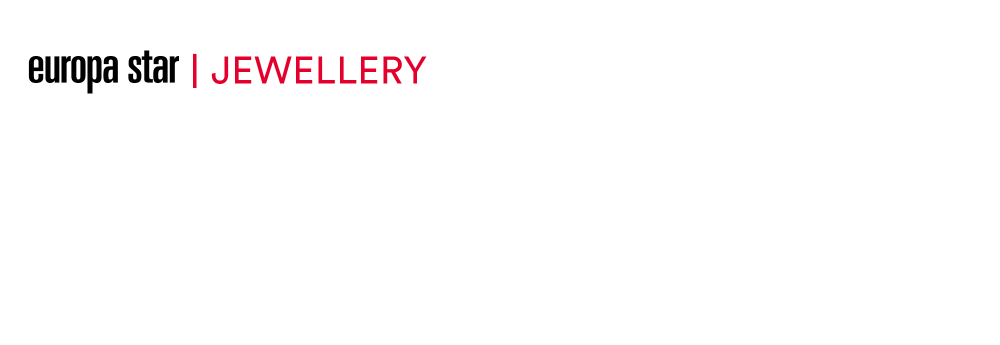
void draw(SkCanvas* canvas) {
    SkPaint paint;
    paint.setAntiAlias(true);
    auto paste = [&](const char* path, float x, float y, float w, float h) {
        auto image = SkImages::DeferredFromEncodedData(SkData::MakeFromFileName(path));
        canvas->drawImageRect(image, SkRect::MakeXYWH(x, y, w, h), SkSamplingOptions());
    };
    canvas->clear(SK_ColorWHITE);
    paste("pic1.png", 28, 50, 399, 44);
}
